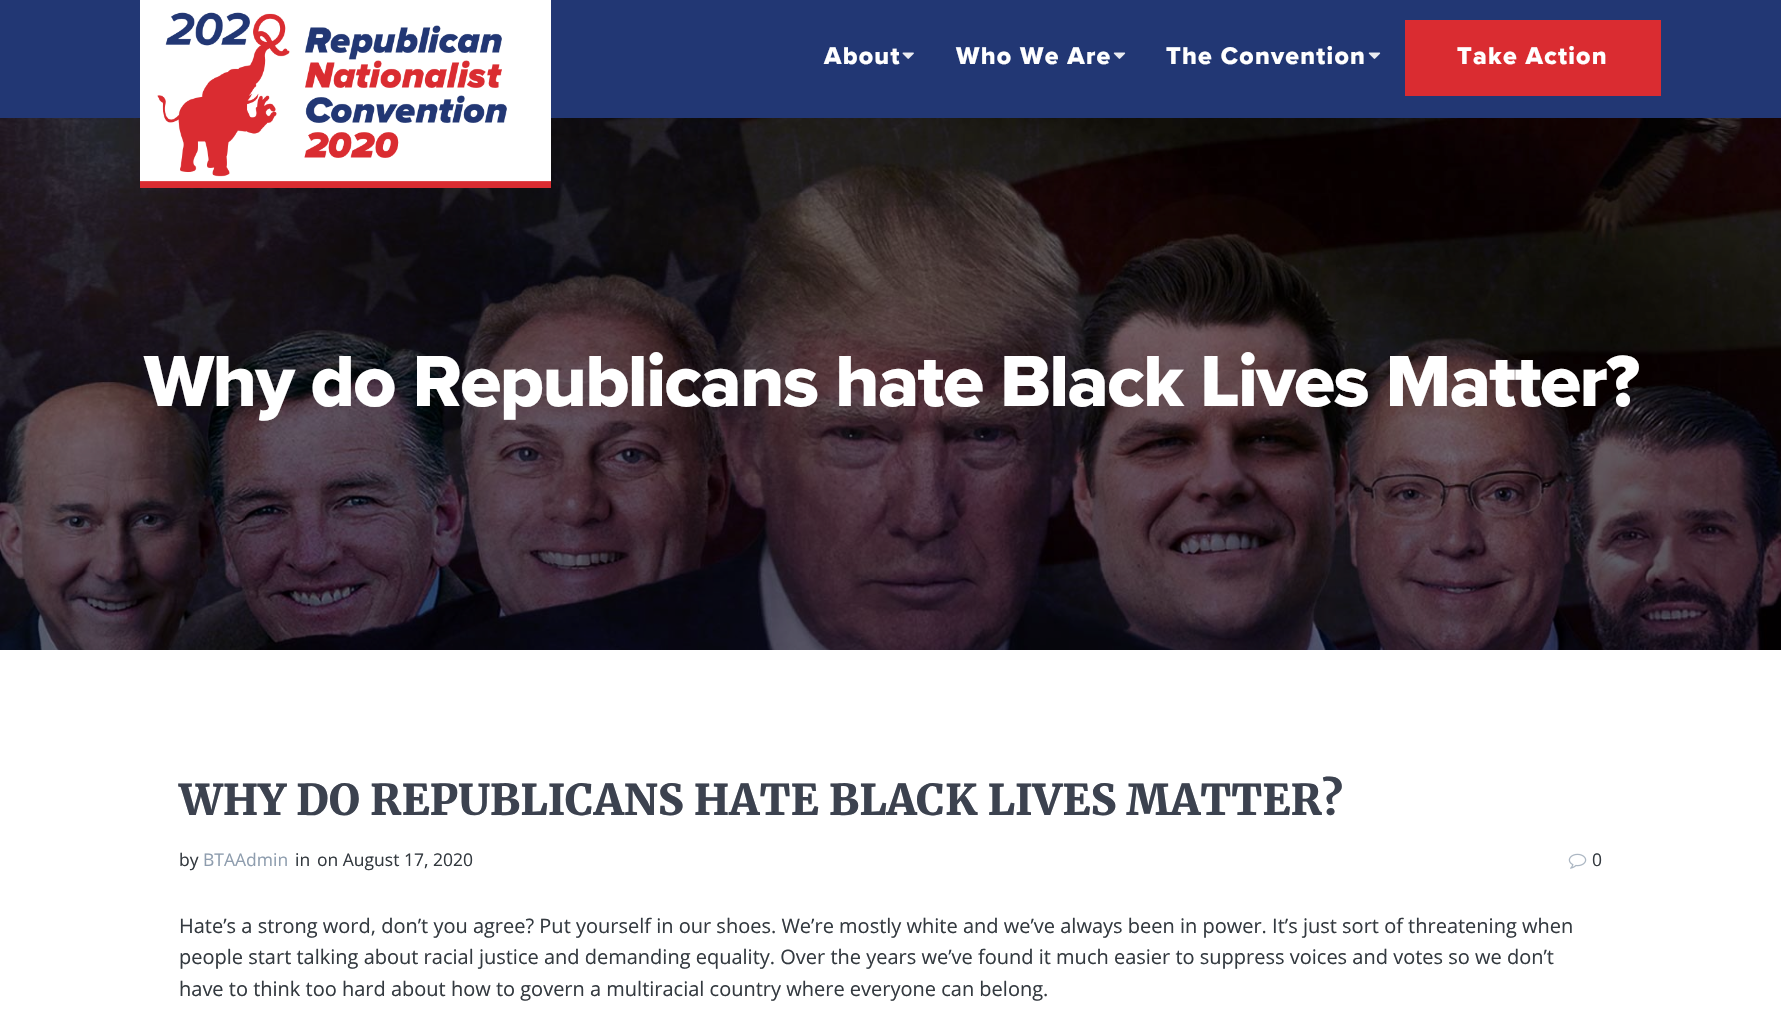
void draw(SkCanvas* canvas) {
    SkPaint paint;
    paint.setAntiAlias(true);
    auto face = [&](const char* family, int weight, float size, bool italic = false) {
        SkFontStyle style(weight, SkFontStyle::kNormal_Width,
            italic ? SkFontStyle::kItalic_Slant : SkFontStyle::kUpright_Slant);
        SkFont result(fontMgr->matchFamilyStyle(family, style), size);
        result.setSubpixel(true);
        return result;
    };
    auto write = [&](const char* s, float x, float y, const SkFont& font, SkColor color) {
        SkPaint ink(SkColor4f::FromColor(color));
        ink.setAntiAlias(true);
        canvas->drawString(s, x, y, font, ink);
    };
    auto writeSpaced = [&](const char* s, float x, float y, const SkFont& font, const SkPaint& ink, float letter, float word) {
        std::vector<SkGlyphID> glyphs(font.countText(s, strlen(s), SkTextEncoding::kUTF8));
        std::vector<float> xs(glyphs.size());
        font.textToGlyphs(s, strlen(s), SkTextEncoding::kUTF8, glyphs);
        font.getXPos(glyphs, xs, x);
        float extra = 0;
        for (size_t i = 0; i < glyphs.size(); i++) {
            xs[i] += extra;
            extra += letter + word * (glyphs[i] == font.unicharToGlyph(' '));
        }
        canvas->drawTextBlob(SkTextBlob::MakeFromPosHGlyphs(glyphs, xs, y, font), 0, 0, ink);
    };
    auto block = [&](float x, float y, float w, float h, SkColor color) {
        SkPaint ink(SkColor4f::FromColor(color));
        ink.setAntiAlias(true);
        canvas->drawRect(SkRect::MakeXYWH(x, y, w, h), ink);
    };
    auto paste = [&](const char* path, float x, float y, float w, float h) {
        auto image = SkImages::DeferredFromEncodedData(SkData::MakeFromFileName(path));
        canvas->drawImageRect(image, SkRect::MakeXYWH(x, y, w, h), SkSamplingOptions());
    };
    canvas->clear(SK_ColorWHITE);
    block(0, 0, 1781, 118, SkColorSetRGB(34, 55, 116));
    paste("pic4.png", 0, 118, 1781, 532);
    paste("pic1.png", 140, 0, 411, 188);
    auto kFont1 = face("Proxima Nova", 800, 25);
    paint.setColor(SK_ColorWHITE);
    writeSpaced("About", 824, 64, kFont1, paint, 1.25f, 0);
    paste("pic2.png", 902, 52, 12, 7);
    writeSpaced("Who We Are", 956, 64, kFont1, paint, 1.25f, 0);
    paste("pic3.png", 1113, 52, 13, 7);
    writeSpaced("The Convention", 1166, 64, kFont1, paint, 1.25f, 0);
    paste("pic3.png", 1368, 52, 13, 7);
    block(1405, 20, 256, 76, SkColorSetRGB(218, 44, 49));
    writeSpaced("Take Action", 1457, 64, kFont1, paint, 1.25f, 0);
    auto kFont2 = face("Proxima Nova", 800, 75);
    writeSpaced("Why do Republicans hate Black Lives Matter?", 144, 406, kFont2, paint, -1.65f, 0);
    auto kFont3 = face("Merriweather", 900, 42.5f);
    write("WHY DO REPUBLICANS HATE BLACK LIVES MATTER?", 179, 815, kFont3, SkColorSetRGB(60, 66, 79));
    auto kFont4 = face("Open Sans", 400, 17.5f);
    write("by", 179, 866, kFont4, SkColorSetRGB(52, 58, 64));
    write("BTAAdmin", 203, 866, kFont4, SkColorSetRGB(142, 157, 174));
    write("in", 295, 866, kFont4, SkColorSetRGB(52, 58, 64));
    write("on August 17, 2020", 317, 866, kFont4, SkColorSetRGB(52, 58, 64));
    paste("pic5.png", 1568, 853, 19, 16);
    write("0", 1592, 866, kFont4, SkColorSetRGB(52, 58, 64));
    auto kFont5 = face("Open Sans", 400, 20);
    write("Hate’s a strong word, don’t you agree? Put yourself in our shoes. We’re mostly white and we’ve always been in power. It’s just sort of threatening when", 179, 933, kFont5, SkColorSetRGB(52, 58, 64));
    write("people start talking about racial justice and demanding equality. Over the years we’ve found it much easier to suppress voices and votes so we don’t", 179, 964, kFont5, SkColorSetRGB(52, 58, 64));
    write("have to think too hard about how to govern a multiracial country where everyone can belong.", 179, 996, kFont5, SkColorSetRGB(52, 58, 64));
}
